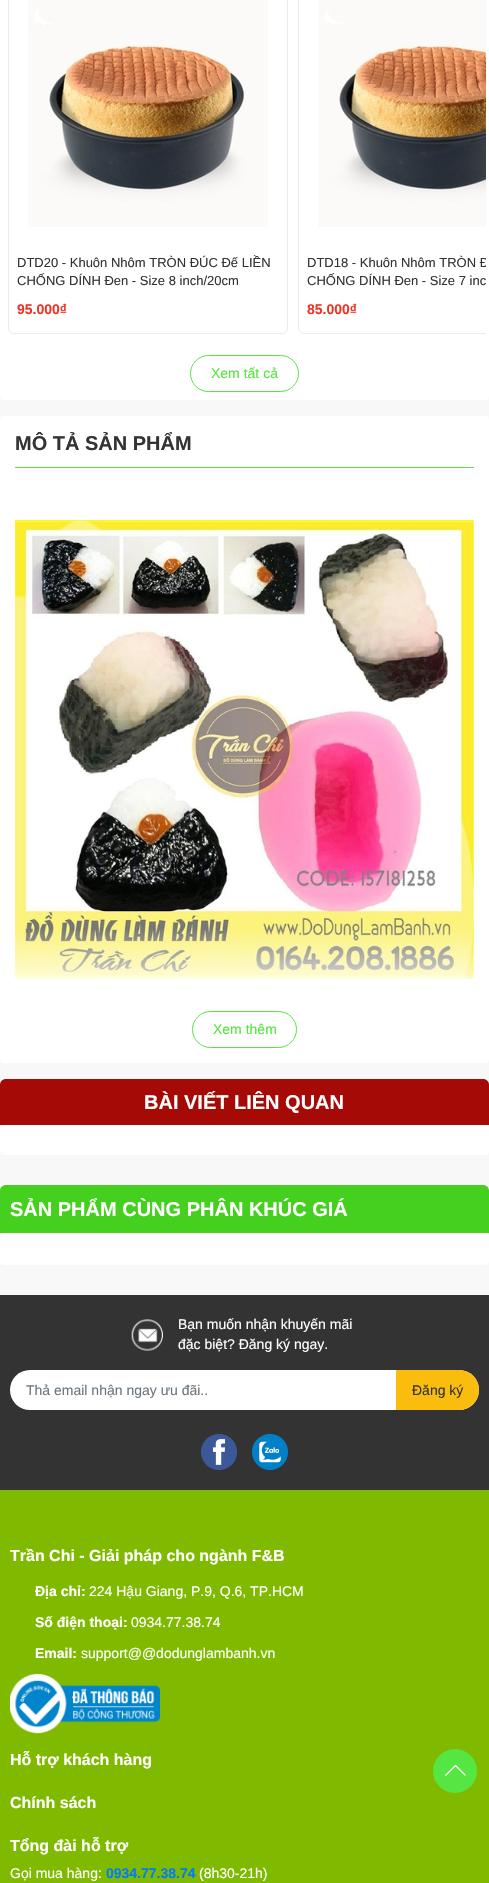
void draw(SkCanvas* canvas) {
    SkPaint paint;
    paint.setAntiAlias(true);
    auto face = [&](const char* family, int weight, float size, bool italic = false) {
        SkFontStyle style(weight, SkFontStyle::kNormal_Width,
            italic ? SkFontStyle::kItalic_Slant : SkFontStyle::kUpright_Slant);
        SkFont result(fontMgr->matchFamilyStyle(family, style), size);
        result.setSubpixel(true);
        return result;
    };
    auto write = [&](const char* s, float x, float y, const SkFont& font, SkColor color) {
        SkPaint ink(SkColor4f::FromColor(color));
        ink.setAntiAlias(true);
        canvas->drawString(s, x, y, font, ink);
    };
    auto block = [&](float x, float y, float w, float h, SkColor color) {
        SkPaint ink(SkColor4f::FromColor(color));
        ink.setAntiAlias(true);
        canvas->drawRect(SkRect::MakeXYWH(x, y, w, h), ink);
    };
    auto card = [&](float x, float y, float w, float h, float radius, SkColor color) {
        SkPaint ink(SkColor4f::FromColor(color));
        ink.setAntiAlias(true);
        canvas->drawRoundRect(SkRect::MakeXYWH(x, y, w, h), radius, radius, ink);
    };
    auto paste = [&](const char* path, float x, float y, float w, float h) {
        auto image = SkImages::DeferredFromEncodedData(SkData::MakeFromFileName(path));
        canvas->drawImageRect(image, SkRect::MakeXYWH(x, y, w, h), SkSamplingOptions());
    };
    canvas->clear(SkColorSetRGB(248, 248, 248));
    card(0, -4, 489, 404, 4, SK_ColorWHITE);
    paint.setStyle(SkPaint::kStroke_Style);
    paint.setStrokeWidth(1);
    paint.setColor(SkColorSetRGB(235, 235, 235));
    canvas->drawRoundRect(SkRect::MakeXYWH(8.5f, -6.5f, 279, 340), 5.5f, 5.5f, paint);
    paste("pic1.png", 28, 0, 240, 227);
    auto kFont1 = face("Liberation Sans", 400, 13);
    write("DTD20 - Khuôn Nhôm TRÒN ĐÚC Đế LIỀN", 17, 267, kFont1, SkColorSetRGB(51, 51, 51));
    write("CHỐNG DÍNH Đen - Size 8 inch/20cm", 17, 285, kFont1, SkColorSetRGB(51, 51, 51));
    auto kFont2 = face("Liberation Sans", 700, 14);
    write("95.000₫", 17, 314, kFont2, SkColorSetRGB(237, 51, 36));
    canvas->save();
    canvas->clipRect(SkRect::MakeXYWH(3, 0, 483, 339));
    canvas->drawRoundRect(SkRect::MakeXYWH(298.5f, -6.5f, 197, 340), 5.5f, 5.5f, paint);
    canvas->restore();
    paste("pic2.png", 318, 0, 168, 227);
    canvas->save();
    canvas->clipRect(SkRect::MakeXYWH(307, 254, 179, 36));
    write("DTD18 - Khuôn Nhôm TRÒN Đ", 307, 267, kFont1, SkColorSetRGB(51, 51, 51));
    canvas->restore();
    write("CHỐNG DÍNH Đen - Size 7 inc", 307, 285, kFont1, SkColorSetRGB(51, 51, 51));
    write("85.000₫", 307, 314, kFont2, SkColorSetRGB(237, 51, 36));
    paint.setColor(SkColorSetRGB(85, 230, 67));
    canvas->drawRoundRect(SkRect::MakeXYWH(190.5f, 355.5f, 108, 36), 18, 18, paint);
    auto kFont3 = face("Liberation Sans", 400, 14);
    write("Xem tất cả", 211, 378, kFont3, SkColorSetRGB(85, 230, 67));
    card(0, 416, 489, 647, 4, SK_ColorWHITE);
    block(15, 467, 459, 1, SkColorSetRGB(85, 230, 67));
    auto kFont4 = face("Liberation Sans", 700, 20);
    write("MÔ TẢ SẢN PHẨM", 15, 450, kFont4, SkColorSetRGB(51, 51, 51));
    paste("pic3.png", 15, 520, 459, 459);
    paint.setStyle(SkPaint::kFill_Style);
    {
        const SkColor colors[] = {SkColorSetARGB(0, 255, 255, 255), SK_ColorWHITE};
        const float stops[] = {0.17f, 0.93f};
        const SkPoint ends[] = {{245, 911}, {245, 1011}};
        paint.setShader(SkGradientShader::MakeLinear(ends, colors, stops, 2, SkTileMode::kClamp));
        paint.setAlpha(255);
    }
    canvas->drawRect(SkRect::MakeXYWH(15, 930, 459, 49), paint);
    paint.setStyle(SkPaint::kStroke_Style);
    paint.setShader(nullptr);
    paint.setColor(SkColorSetRGB(85, 230, 67));
    canvas->drawRoundRect(SkRect::MakeXYWH(192.5f, 1011.5f, 104, 36), 18, 18, paint);
    write("Xem thêm", 213, 1034, kFont3, SkColorSetRGB(85, 230, 67));
    paint.setStyle(SkPaint::kFill_Style);
    paint.setColor(SkColorSetRGB(165, 10, 6));
    canvas->drawPath(SkPathBuilder().moveTo(6, 1079).lineTo(483, 1079).cubicTo(486.5f, 1079, 489, 1081.5f, 489, 1085).lineTo(489, 1125).lineTo(0, 1125).lineTo(0, 1085).cubicTo(0, 1081.5f, 2.5f, 1079, 6, 1079).close().detach(), paint);
    write("BÀI VIẾT LIÊN QUAN", 144, 1109, kFont4, SK_ColorWHITE);
    card(0, 1125, 489, 30, 4, SK_ColorWHITE);
    paint.setColor(SkColorSetRGB(69, 208, 32));
    canvas->drawPath(SkPathBuilder().moveTo(6, 1185).lineTo(483, 1185).cubicTo(486.5f, 1185, 489, 1187.5f, 489, 1191).lineTo(489, 1233).lineTo(0, 1233).lineTo(0, 1191).cubicTo(0, 1187.5f, 2.5f, 1185, 6, 1185).close().detach(), paint);
    write("SẢN PHẨM CÙNG PHÂN KHÚC GIÁ", 10, 1216, kFont4, SK_ColorWHITE);
    card(0, 1233, 489, 32, 4, SK_ColorWHITE);
    block(0, 1295, 489, 195, SkColorSetRGB(51, 51, 51));
    paste("pic4.png", 131, 1319, 32, 32);
    write("Bạn muốn nhận khuyến mãi", 178, 1329, kFont3, SK_ColorWHITE);
    write("đặc biệt? Đăng ký ngay.", 178, 1349, kFont3, SK_ColorWHITE);
    card(10, 1370, 469, 40, 20, SK_ColorWHITE);
    write("Thả email nhận ngay ưu đãi..", 26, 1395, kFont3, SkColorSetRGB(108, 117, 125));
    paint.setColor(SkColorSetRGB(250, 189, 13));
    canvas->drawPath(SkPathBuilder().moveTo(396, 1370).lineTo(459, 1370).cubicTo(470, 1370, 479, 1379, 479, 1390).cubicTo(479, 1401, 470, 1410, 459, 1410).lineTo(396, 1410).close().detach(), paint);
    write("Đăng ký", 412, 1395, kFont3, SkColorSetRGB(51, 51, 51));
    paste("pic5.png", 201, 1434, 36, 36);
    paste("pic6.png", 252, 1434, 36, 36);
    block(0, 1490, 489, 393, SkColorSetRGB(127, 186, 0));
    auto kFont5 = face("Liberation Sans", 700, 16);
    write("Trần Chi - Giải pháp cho ngành F&B", 10, 1561, kFont5, SK_ColorWHITE);
    write("Địa chỉ:", 35, 1596, kFont2, SK_ColorWHITE);
    write("224 Hậu Giang, P.9, Q.6, TP.HCM", 89, 1596, kFont3, SK_ColorWHITE);
    write("Số điện thoại:", 35, 1627, kFont2, SK_ColorWHITE);
    write("0934.77.38.74", 131, 1627, kFont3, SK_ColorWHITE);
    write("Email:", 35, 1658, kFont2, SK_ColorWHITE);
    write("support@@dodunglambanh.vn", 81, 1658, kFont3, SK_ColorWHITE);
    paste("pic7.png", 10, 1674, 150, 60);
    write("Hỗ trợ khách hàng", 10, 1765, kFont5, SK_ColorWHITE);
    write("Chính sách", 10, 1808, kFont5, SK_ColorWHITE);
    write("Tổng đài hỗ trợ", 10, 1851, kFont5, SK_ColorWHITE);
    write("Gọi mua hàng:", 10, 1878, kFont3, SK_ColorWHITE);
    write("0934.77.38.74", 106, 1878, kFont2, SkColorSetRGB(0, 123, 255));
    write("(8h30-21h)", 199, 1878, kFont3, SK_ColorWHITE);
    paint.setColor(SkColorSetRGB(85, 230, 67));
    canvas->drawCircle(455, 1771, 22, paint);
    paste("pic8.png", 445, 1765, 21, 11);
}
